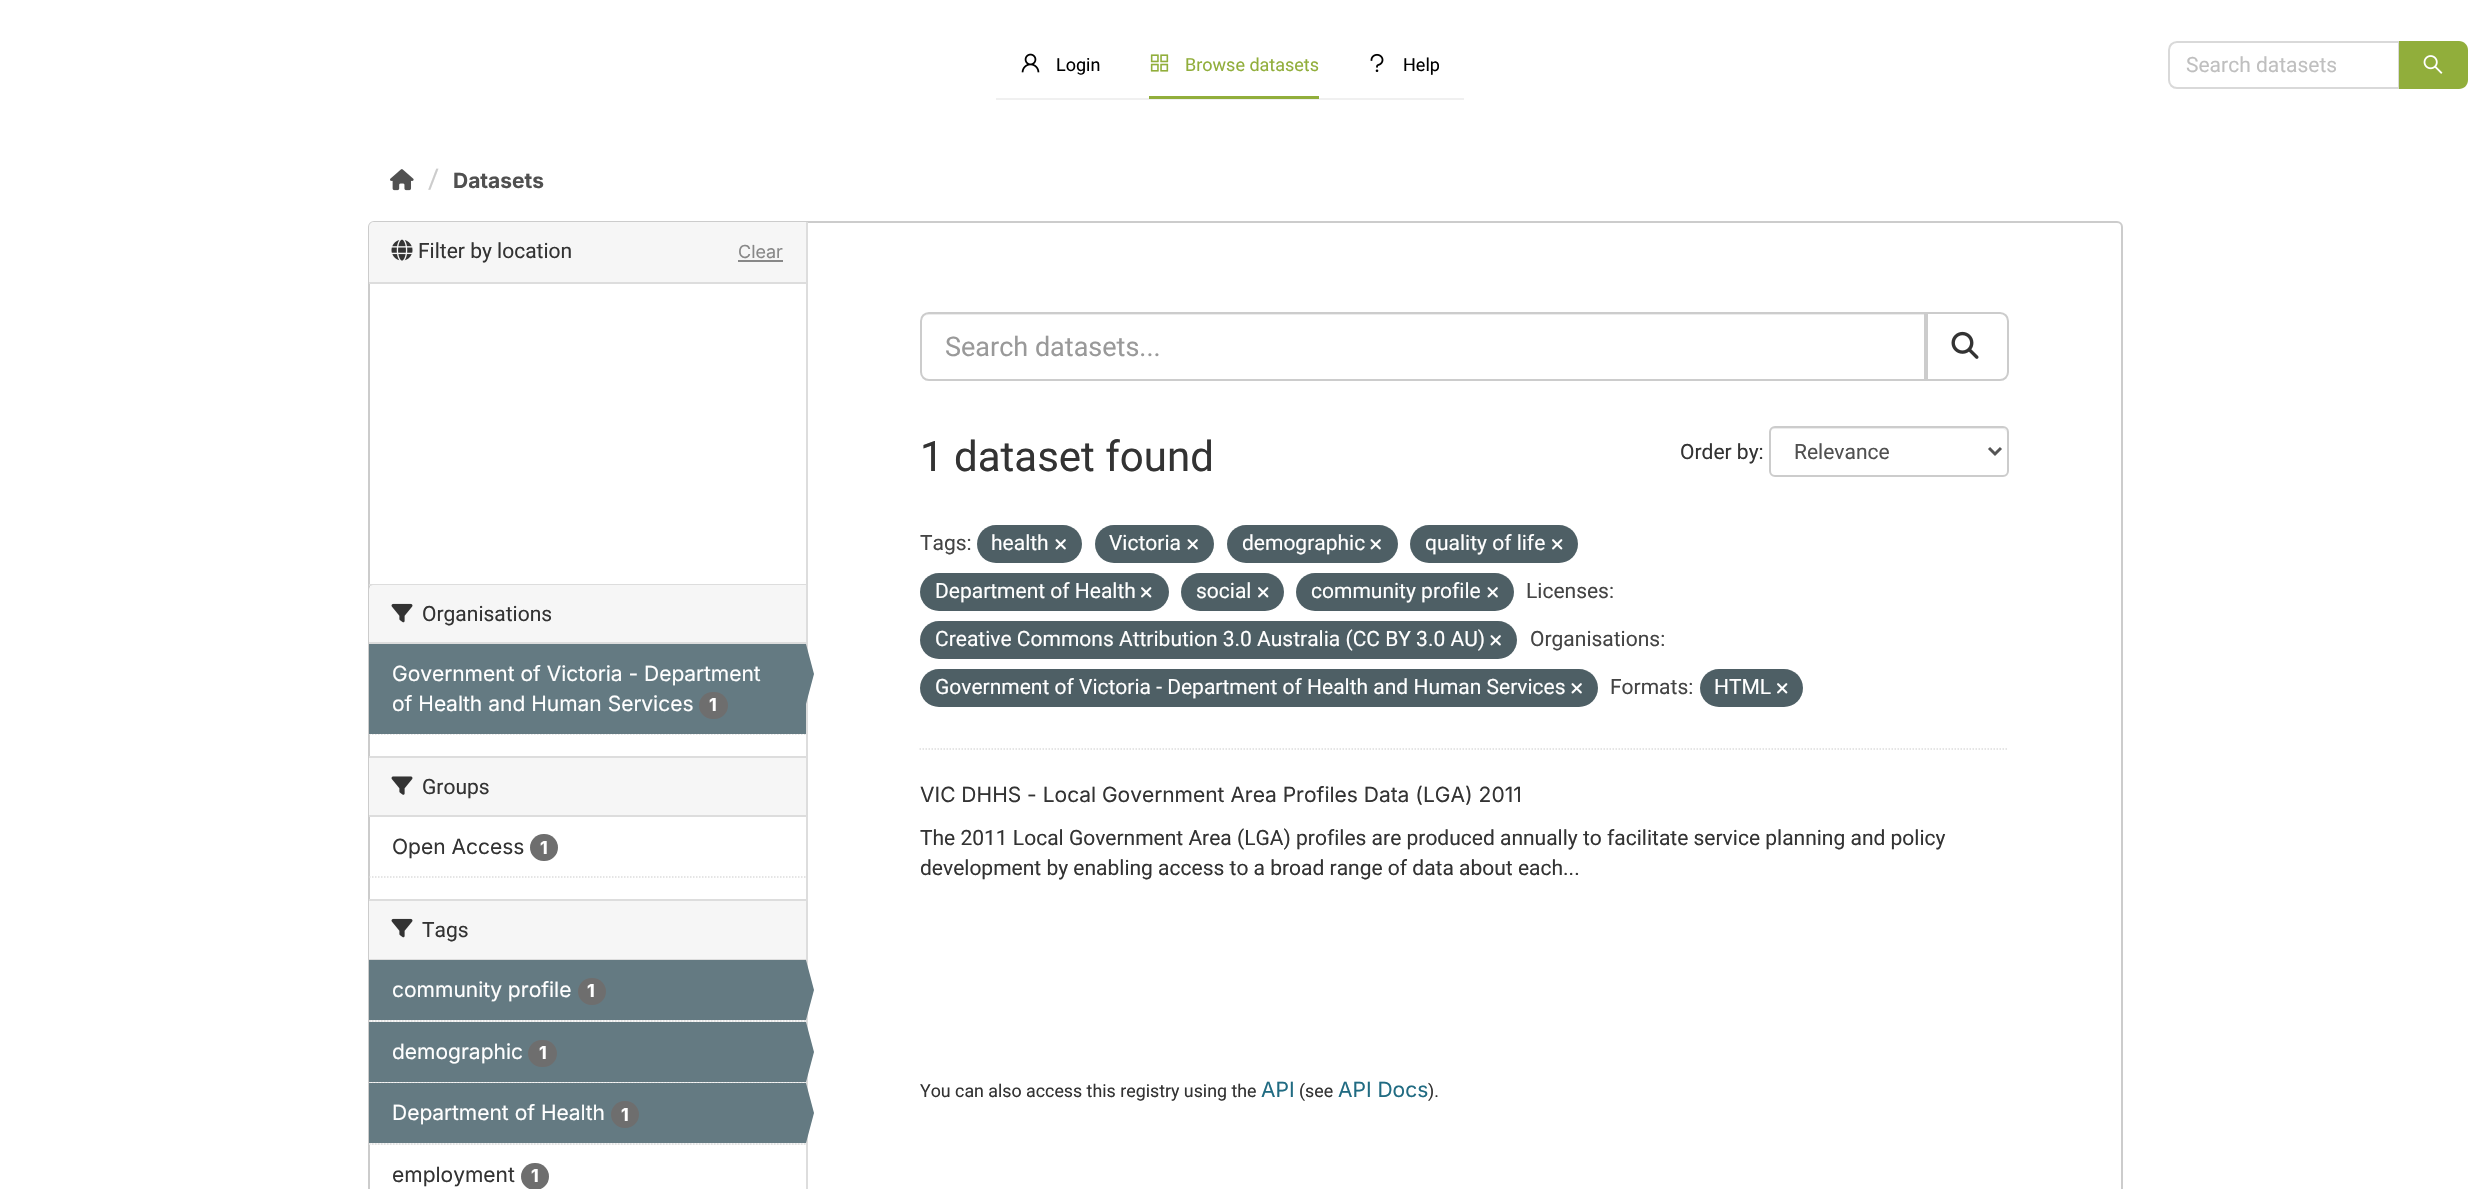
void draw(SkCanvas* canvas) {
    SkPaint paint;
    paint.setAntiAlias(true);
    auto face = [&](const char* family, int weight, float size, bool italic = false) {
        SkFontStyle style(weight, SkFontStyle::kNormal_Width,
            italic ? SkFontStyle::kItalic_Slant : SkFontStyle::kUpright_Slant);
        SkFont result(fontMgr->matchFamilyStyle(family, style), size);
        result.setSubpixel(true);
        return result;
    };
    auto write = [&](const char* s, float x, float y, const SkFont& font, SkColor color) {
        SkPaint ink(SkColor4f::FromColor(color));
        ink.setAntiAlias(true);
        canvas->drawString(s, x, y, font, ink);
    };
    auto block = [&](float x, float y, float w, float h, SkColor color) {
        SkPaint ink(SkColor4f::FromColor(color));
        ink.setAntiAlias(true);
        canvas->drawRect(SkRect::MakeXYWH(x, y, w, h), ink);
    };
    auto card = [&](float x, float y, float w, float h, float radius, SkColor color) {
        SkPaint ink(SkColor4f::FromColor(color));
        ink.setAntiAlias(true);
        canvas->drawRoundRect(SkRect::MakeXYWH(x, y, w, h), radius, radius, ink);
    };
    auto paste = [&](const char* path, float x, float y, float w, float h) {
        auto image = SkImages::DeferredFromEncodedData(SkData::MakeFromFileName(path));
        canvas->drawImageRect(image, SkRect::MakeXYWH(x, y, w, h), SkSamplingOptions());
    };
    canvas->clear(SK_ColorWHITE);
    block(996, 98, 468, 2, SkColorSetRGB(240, 240, 240));
    paste("pic1.png", 1021, 53, 19, 20);
    auto kFont1 = face("Roboto", 400, 18);
    write("Login", 1056, 71, kFont1, SK_ColorBLACK);
    paste("pic2.png", 1150, 54, 19, 18);
    write("Browse datasets", 1185, 71, kFont1, SkColorSetRGB(145, 174, 59));
    block(1149, 96, 170, 3, SkColorSetRGB(145, 174, 59));
    paste("pic3.png", 1370, 53, 14, 19);
    write("Help", 1403, 71, kFont1, SK_ColorBLACK);
    paint.setStyle(SkPaint::kStroke_Style);
    paint.setStrokeWidth(2);
    paint.setColor(SkColorSetRGB(217, 217, 217));
    canvas->drawPath(SkPathBuilder().moveTo(2177, 42).lineTo(2399, 42).lineTo(2399, 88).lineTo(2177, 88).cubicTo(2172.5f, 88, 2169, 84.5f, 2169, 80).lineTo(2169, 50).cubicTo(2169, 45.5f, 2172.5f, 42, 2177, 42).close().detach(), paint);
    auto kFont2 = face("Roboto", 400, 21);
    write("Search datasets", 2186, 72, kFont2, SkColorSetRGB(191, 191, 191));
    paint.setStyle(SkPaint::kFill_Style);
    paint.setColor(SkColorSetRGB(145, 174, 59));
    canvas->drawPath(SkPathBuilder().moveTo(2399, 41).lineTo(2459, 41).cubicTo(2464, 41, 2468, 45, 2468, 50).lineTo(2468, 80).cubicTo(2468, 85, 2464, 89, 2459, 89).lineTo(2399, 89).close().detach(), paint);
    paste("pic4.png", 2423, 55, 20, 19);
    paste("pic5.png", 390, 169, 24, 22);
    auto kFont3 = face("Roboto", 400, 27);
    write("/", 428, 188, kFont3, SkColorSetRGB(204, 204, 204));
    auto kFont4 = face("Inter", 700, 21);
    write("Datasets", 453, 188, kFont4, SkColorSetRGB(80, 80, 80));
    paint.setStyle(SkPaint::kStroke_Style);
    paint.setColor(SkColorSetRGB(204, 204, 204));
    canvas->drawRoundRect(SkRect::MakeXYWH(369, 222, 1753, 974), 5, 5, paint);
    paint.setStyle(SkPaint::kFill_Style);
    paint.setColor(SkColorSetRGB(246, 246, 246));
    canvas->drawPath(SkPathBuilder().moveTo(374, 222).lineTo(806, 222).lineTo(806, 284).lineTo(369, 284).lineTo(369, 227).cubicTo(369, 224, 371, 222, 374, 222).close().detach(), paint);
    block(369, 282, 437, 2, SkColorSetRGB(221, 221, 221));
    paste("pic6.png", 391, 239, 22, 22);
    write("Filter by location", 418, 258, kFont2, SkColorSetRGB(51, 51, 51));
    auto kFont5 = face("Inter", 400, 18);
    write("Clear", 738, 258, kFont5, SkColorSetRGB(136, 136, 136));
    block(738, 260, 45, 2, SkColorSetRGB(136, 136, 136));
    block(369, 584, 437, 2, SkColorSetRGB(221, 221, 221));
    canvas->drawPath(SkPathBuilder().moveTo(374, 585).lineTo(806, 585).lineTo(806, 644).lineTo(369, 644).lineTo(369, 590).cubicTo(369, 587, 371, 585, 374, 585).close().detach(), paint);
    block(369, 642, 437, 2, SkColorSetRGB(221, 221, 221));
    paste("pic7.png", 391, 603, 22, 20);
    write("Organisations", 422, 621, kFont2, SkColorSetRGB(51, 51, 51));
    paint.setStyle(SkPaint::kStroke_Style);
    paint.setStrokeWidth(1.5f);
    paint.setColor(SkColorSetRGB(221, 221, 221));
    paint.setPathEffect(SkDashPathEffect::Make({{1.5f, 1.5f}}, 0));
    canvas->drawPath(SkPathBuilder().moveTo(369, 734).lineTo(805.5f, 734).detach(), paint);
    paint.setPathEffect(nullptr);
    block(369, 644, 437, 90, SkColorSetRGB(100, 122, 130));
    auto kFont6 = face("Inter", 400, 21);
    write("Government of Victoria - Department", 392, 681, kFont6, SK_ColorWHITE);
    block(806, 222, 2, 967, SkColorSetRGB(221, 221, 221));
    paint.setStyle(SkPaint::kFill_Style);
    paint.setColor(SkColorSetRGB(100, 122, 130));
    canvas->drawPath(SkPathBuilder().moveTo(806, 704).lineTo(806, 644).lineTo(814, 674).close().detach(), paint);
    write("of Health and Human Services", 392, 711, kFont6, SK_ColorWHITE);
    card(699, 692, 29, 27, 13.5f, SkColorSetRGB(110, 110, 110));
    auto kFont7 = face("Inter", 700, 18);
    write("1", 709, 711, kFont7, SK_ColorWHITE);
    block(369, 758, 437, 57, SkColorSetRGB(246, 246, 246));
    block(369, 756, 437, 2, SkColorSetRGB(221, 221, 221));
    block(369, 815, 437, 2, SkColorSetRGB(221, 221, 221));
    paste("pic8.png", 391, 776, 22, 19);
    write("Groups", 422, 794, kFont2, SkColorSetRGB(51, 51, 51));
    write("Open Access", 392, 854, kFont6, SkColorSetRGB(51, 51, 51));
    card(530, 834, 28, 27, 13.5f, SkColorSetRGB(110, 110, 110));
    write("1", 540, 854, kFont7, SK_ColorWHITE);
    paint.setStyle(SkPaint::kStroke_Style);
    paint.setColor(SkColorSetRGB(221, 221, 221));
    paint.setPathEffect(SkDashPathEffect::Make({{1.5f, 1.5f}}, 0));
    canvas->drawPath(SkPathBuilder().moveTo(369, 877).lineTo(805.5f, 877).detach(), paint);
    paint.setPathEffect(nullptr);
    block(369, 901, 437, 58, SkColorSetRGB(246, 246, 246));
    block(369, 899, 437, 2, SkColorSetRGB(221, 221, 221));
    block(369, 959, 437, 1, SkColorSetRGB(221, 221, 221));
    paste("pic7.png", 391, 918, 22, 20);
    write("Tags", 422, 937, kFont2, SkColorSetRGB(51, 51, 51));
    block(369, 1020, 437, 2, SkColorSetRGB(246, 246, 246));
    paint.setPathEffect(SkDashPathEffect::Make({{1.5f, 1.5f}}, 0));
    canvas->drawPath(SkPathBuilder().moveTo(369, 1021).lineTo(805.5f, 1021).detach(), paint);
    paint.setPathEffect(nullptr);
    block(369, 960, 437, 60, SkColorSetRGB(100, 122, 130));
    write("community profile", 392, 997, kFont6, SK_ColorWHITE);
    card(578, 978, 28, 27, 13.5f, SkColorSetRGB(110, 110, 110));
    write("1", 587, 997, kFont7, SK_ColorWHITE);
    paint.setStyle(SkPaint::kFill_Style);
    paint.setColor(SkColorSetRGB(100, 122, 130));
    canvas->drawPath(SkPathBuilder().moveTo(806, 1020).lineTo(806, 960).lineTo(814, 990).close().detach(), paint);
    block(369, 1082, 437, 1, SkColorSetRGB(246, 246, 246));
    paint.setStyle(SkPaint::kStroke_Style);
    paint.setColor(SkColorSetRGB(221, 221, 221));
    paint.setPathEffect(SkDashPathEffect::Make({{1.5f, 1.5f}}, 0));
    canvas->drawPath(SkPathBuilder().moveTo(369, 1082).lineTo(805.5f, 1082).detach(), paint);
    paint.setPathEffect(nullptr);
    block(369, 1022, 437, 60, SkColorSetRGB(100, 122, 130));
    write("demographic", 392, 1059, kFont6, SK_ColorWHITE);
    card(528, 1040, 29, 27, 13.5f, SkColorSetRGB(110, 110, 110));
    write("1", 539, 1059, kFont7, SK_ColorWHITE);
    paint.setStyle(SkPaint::kFill_Style);
    paint.setColor(SkColorSetRGB(100, 122, 130));
    canvas->drawPath(SkPathBuilder().moveTo(806, 1082).lineTo(806, 1022).lineTo(814, 1052).close().detach(), paint);
    block(369, 1143, 437, 2, SkColorSetRGB(246, 246, 246));
    paint.setStyle(SkPaint::kStroke_Style);
    paint.setColor(SkColorSetRGB(221, 221, 221));
    paint.setPathEffect(SkDashPathEffect::Make({{1.5f, 1.5f}}, 0));
    canvas->drawPath(SkPathBuilder().moveTo(369, 1144).lineTo(805.5f, 1144).detach(), paint);
    paint.setPathEffect(nullptr);
    block(369, 1083, 437, 60, SkColorSetRGB(100, 122, 130));
    write("Department of Health", 392, 1120, kFont6, SK_ColorWHITE);
    card(611, 1101, 28, 27, 13.5f, SkColorSetRGB(110, 110, 110));
    write("1", 621, 1121, kFont7, SK_ColorWHITE);
    paint.setStyle(SkPaint::kFill_Style);
    paint.setColor(SkColorSetRGB(100, 122, 130));
    canvas->drawPath(SkPathBuilder().moveTo(806, 1143).lineTo(806, 1083).lineTo(814, 1113).close().detach(), paint);
    write("employment", 392, 1182, kFont6, SkColorSetRGB(51, 51, 51));
    card(521, 1163, 28, 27, 13.5f, SkColorSetRGB(110, 110, 110));
    write("1", 531, 1182, kFont7, SK_ColorWHITE);
    paint.setStyle(SkPaint::kStroke_Style);
    paint.setColor(SkColorSetRGB(221, 221, 221));
    paint.setPathEffect(SkDashPathEffect::Make({{1.5f, 1.5f}}, 0));
    canvas->drawPath(SkPathBuilder().moveTo(919.5f, 749).lineTo(2008.5f, 749).detach(), paint);
    paint.setPathEffect(nullptr);
    paint.setStyle(SkPaint::kFill_Style);
    paint.setColor(SkColorSetRGB(236, 236, 236));
    canvas->drawPath(SkPathBuilder().moveTo(928, 315).lineTo(1924, 315).lineTo(1924, 380).lineTo(1925, 380).lineTo(1925, 314).lineTo(929, 314).cubicTo(925, 314, 921, 318, 921, 322).cubicTo(921, 318, 924, 315, 928, 315).close().detach(), paint);
    paint.setStyle(SkPaint::kStroke_Style);
    paint.setStrokeWidth(2);
    paint.setColor(SkColorSetRGB(204, 204, 204));
    canvas->drawPath(SkPathBuilder().moveTo(929, 313).lineTo(1925, 313).lineTo(1925, 380).lineTo(929, 380).cubicTo(924.5f, 380, 921, 376.5f, 921, 372).lineTo(921, 321).cubicTo(921, 316.5f, 924.5f, 313, 929, 313).close().detach(), paint);
    write("Search datasets...", 945, 356, kFont3, SkColorSetRGB(153, 153, 153));
    canvas->drawPath(SkPathBuilder().moveTo(1927, 313).lineTo(2000, 313).cubicTo(2004.5f, 313, 2008, 316.5f, 2008, 321).lineTo(2008, 372).cubicTo(2008, 376.5f, 2004.5f, 380, 2000, 380).lineTo(1927, 380).close().detach(), paint);
    paste("pic9.png", 1951, 331, 28, 28);
    auto kFont8 = face("Roboto", 400, 42);
    write("1 dataset found", 920, 471, kFont8, SkColorSetRGB(51, 51, 51));
    write("Order by:", 1680, 459, kFont2, SkColorSetRGB(51, 51, 51));
    paint.setStyle(SkPaint::kFill_Style);
    paint.setColor(SkColorSetRGB(236, 236, 236));
    canvas->drawPath(SkPathBuilder().moveTo(1774, 429).lineTo(2002, 429).cubicTo(2005, 429, 2007, 431, 2007, 434).lineTo(2007, 433).cubicTo(2007, 430, 2005, 428, 2002, 428).lineTo(1775, 428).cubicTo(1772, 428, 1770, 430, 1770, 433).lineTo(1770, 434).cubicTo(1770, 431, 1772, 429, 1774, 429).close().detach(), paint);
    paint.setStyle(SkPaint::kStroke_Style);
    paint.setColor(SkColorSetRGB(204, 204, 204));
    canvas->drawRoundRect(SkRect::MakeXYWH(1770, 427, 238, 49), 5, 5, paint);
    paint.setStrokeWidth(3);
    paint.setColor(SkColorSetRGB(85, 85, 85));
    canvas->drawPath(SkPathBuilder().moveTo(1989, 448).lineTo(1995, 454).lineTo(2001, 448).detach(), paint);
    write("Relevance", 1794, 459, kFont2, SkColorSetRGB(80, 80, 80));
    write("Tags:", 920, 550, kFont2, SkColorSetRGB(68, 68, 68));
    card(977, 525, 105, 38, 19, SkColorSetRGB(78, 95, 101));
    write("health", 991, 550, kFont2, SK_ColorWHITE);
    paste("pic10.png", 1055, 539, 11, 11);
    card(1095, 525, 119, 38, 19, SkColorSetRGB(78, 95, 101));
    write("Victoria", 1109, 550, kFont2, SK_ColorWHITE);
    paste("pic10.png", 1187, 539, 11, 11);
    card(1227, 525, 171, 38, 19, SkColorSetRGB(78, 95, 101));
    write("demographic", 1242, 550, kFont2, SK_ColorWHITE);
    paste("pic10.png", 1370, 539, 11, 11);
    card(1410, 525, 168, 38, 19, SkColorSetRGB(78, 95, 101));
    write("quality of life", 1425, 550, kFont2, SK_ColorWHITE);
    paste("pic11.png", 1552, 539, 11, 11);
    card(920, 573, 249, 38, 19, SkColorSetRGB(78, 95, 101));
    write("Department of Health", 935, 598, kFont2, SK_ColorWHITE);
    paste("pic11.png", 1141, 587, 11, 11);
    card(1181, 573, 103, 38, 19, SkColorSetRGB(78, 95, 101));
    write("social", 1196, 598, kFont2, SK_ColorWHITE);
    paste("pic11.png", 1258, 587, 11, 11);
    card(1296, 573, 218, 38, 19, SkColorSetRGB(78, 95, 101));
    write("community profile", 1311, 598, kFont2, SK_ColorWHITE);
    paste("pic10.png", 1487, 587, 11, 11);
    write("Licenses:", 1526, 598, kFont2, SkColorSetRGB(68, 68, 68));
    card(920, 621, 597, 38, 19, SkColorSetRGB(78, 95, 101));
    write("Creative Commons Attribution 3.0 Australia (CC BY 3.0 AU)", 935, 646, kFont2, SK_ColorWHITE);
    paste("pic10.png", 1490, 635, 11, 11);
    write("Organisations:", 1530, 646, kFont2, SkColorSetRGB(68, 68, 68));
    card(920, 669, 678, 38, 19, SkColorSetRGB(78, 95, 101));
    write("Government of Victoria - Department of Health and Human Services", 935, 694, kFont2, SK_ColorWHITE);
    paste("pic10.png", 1571, 683, 11, 11);
    write("Formats:", 1610, 694, kFont2, SkColorSetRGB(68, 68, 68));
    card(1700, 669, 103, 38, 19, SkColorSetRGB(78, 95, 101));
    write("HTML", 1714, 694, kFont2, SK_ColorWHITE);
    paste("pic11.png", 1777, 683, 11, 11);
    write("VIC DHHS - Local Government Area Profiles Data (LGA) 2011", 920, 802, kFont6, SkColorSetRGB(51, 51, 51));
    write("The 2011 Local Government Area (LGA) profiles are produced annually to facilitate service planning and policy", 920, 845, kFont2, SkColorSetRGB(51, 51, 51));
    write("development by enabling access to a broad range of data about each...", 920, 875, kFont2, SkColorSetRGB(51, 51, 51));
    auto kFont9 = face("Roboto", 400, 17.8f);
    write("You can also access this registry using the", 920, 1097, kFont9, SkColorSetRGB(51, 51, 51));
    write("API", 1261, 1097, kFont6, SkColorSetRGB(32, 107, 130));
    write("(see", 1299, 1097, kFont9, SkColorSetRGB(51, 51, 51));
    write("API Docs", 1338, 1097, kFont6, SkColorSetRGB(32, 107, 130));
    write(").", 1428, 1097, kFont9, SkColorSetRGB(51, 51, 51));
}
